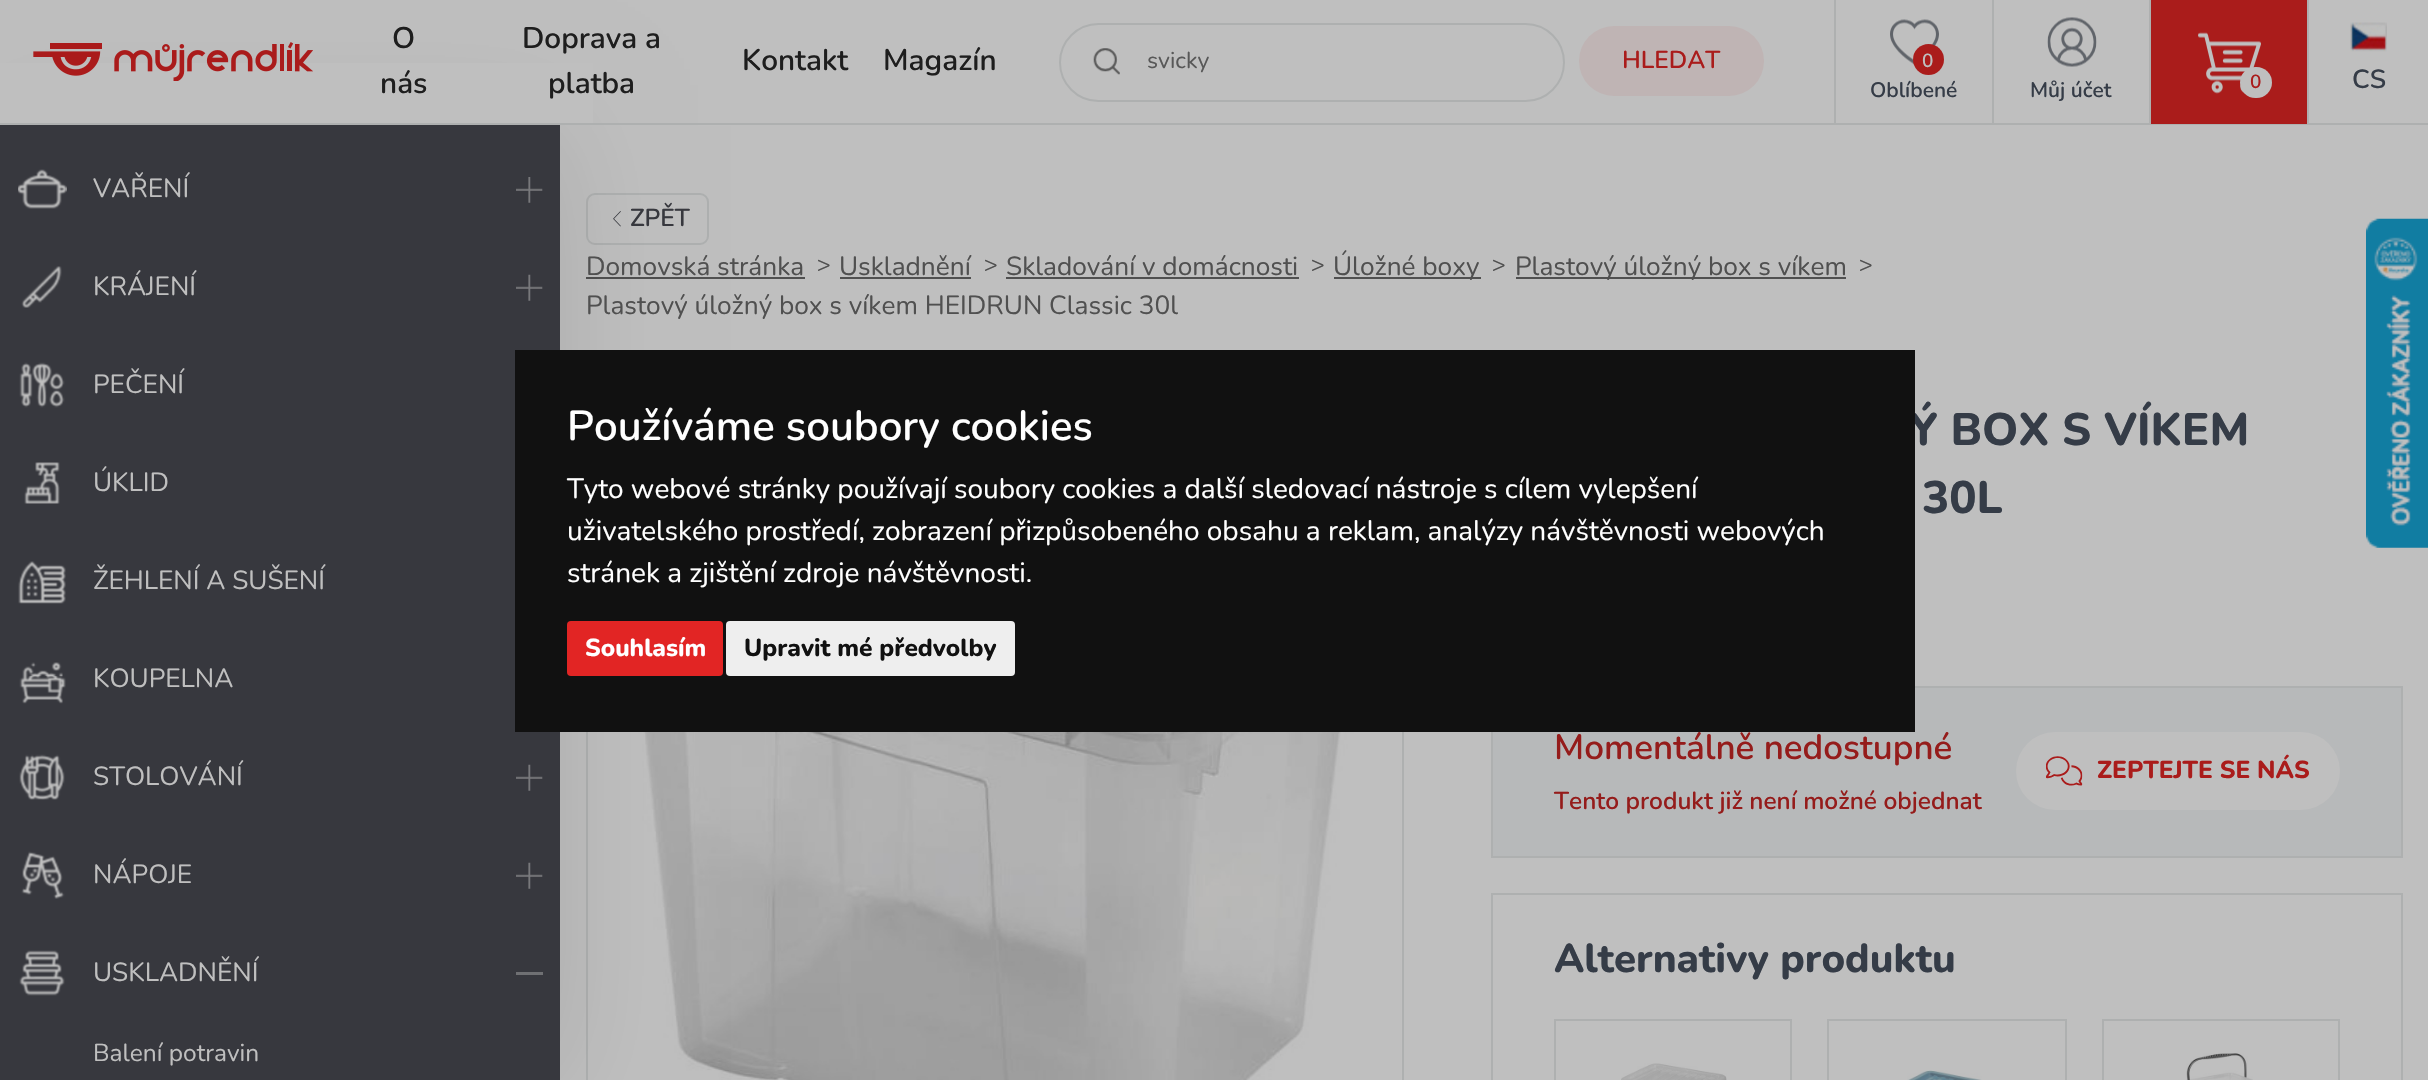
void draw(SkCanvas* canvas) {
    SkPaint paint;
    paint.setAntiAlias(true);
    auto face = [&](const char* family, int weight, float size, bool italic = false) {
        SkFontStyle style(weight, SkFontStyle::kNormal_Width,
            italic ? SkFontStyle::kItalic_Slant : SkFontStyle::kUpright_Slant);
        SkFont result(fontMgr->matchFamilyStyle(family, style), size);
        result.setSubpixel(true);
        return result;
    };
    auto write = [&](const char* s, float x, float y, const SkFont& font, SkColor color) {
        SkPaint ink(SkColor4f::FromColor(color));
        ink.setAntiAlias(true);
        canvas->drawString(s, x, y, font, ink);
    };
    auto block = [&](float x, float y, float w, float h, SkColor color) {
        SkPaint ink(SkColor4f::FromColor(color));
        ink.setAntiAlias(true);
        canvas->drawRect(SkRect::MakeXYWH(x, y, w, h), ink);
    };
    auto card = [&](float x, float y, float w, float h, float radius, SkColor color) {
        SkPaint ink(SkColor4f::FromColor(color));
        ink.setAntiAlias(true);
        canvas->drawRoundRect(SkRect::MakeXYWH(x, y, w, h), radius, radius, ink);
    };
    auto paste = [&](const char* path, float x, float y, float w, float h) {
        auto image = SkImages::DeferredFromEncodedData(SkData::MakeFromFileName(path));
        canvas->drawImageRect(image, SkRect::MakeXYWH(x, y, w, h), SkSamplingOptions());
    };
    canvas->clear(SkColorSetRGB(191, 191, 191));
    paint.setStyle(SkPaint::kStroke_Style);
    paint.setStrokeWidth(2);
    paint.setColor(SkColorSetRGB(174, 176, 176));
    canvas->drawRoundRect(SkRect::MakeXYWH(587, 194, 121, 50), 8, 8, paint);
    paste("pic18.png", 613, 211, 8, 16);
    block(586, 277, 219, 2, SkColorSetRGB(80, 80, 80));
    canvas->drawRect(SkRect::MakeXYWH(587, 397, 816, 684), paint);
    paste("pic19.png", 588, 732, 814, 348);
    paint.setStyle(SkPaint::kFill_Style);
    paint.setColor(SkColorSetARGB(26, 0, 0, 0));
    paint.setMaskFilter(SkMaskFilter::MakeBlur(kNormal_SkBlurStyle, 57));
    canvas->drawRect(SkRect::MakeXYWH(0, 126, 560, 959), paint);
    paint.setMaskFilter(nullptr);
    block(0, 63, 593, 60, SkColorSetRGB(191, 191, 191));
    block(0, 123, 2428, 2, SkColorSetRGB(174, 176, 176));
    paste("pic1.png", 33, 42, 280, 39);
    auto kFont1 = face("Nunito", 600, 29.75f);
    write("O", 392, 48, kFont1, SkColorSetRGB(30, 30, 30));
    write("nás", 380, 93, kFont1, SkColorSetRGB(30, 30, 30));
    write("Doprava a", 522, 48, kFont1, SkColorSetRGB(30, 30, 30));
    write("platba", 548, 93, kFont1, SkColorSetRGB(30, 30, 30));
    write("Kontakt", 742, 70, kFont1, SkColorSetRGB(30, 30, 30));
    write("Magazín", 883, 70, kFont1, SkColorSetRGB(30, 30, 30));
    paint.setStyle(SkPaint::kStroke_Style);
    paint.setColor(SkColorSetRGB(174, 176, 176));
    canvas->drawRoundRect(SkRect::MakeXYWH(1060, 24, 504, 77), 38.5f, 38.5f, paint);
    paste("pic2.png", 1093, 48, 27, 27);
    auto kFont2 = face("Nunito", 400, 23);
    write("svicky", 1147, 68, kFont2, SkColorSetRGB(88, 88, 88));
    card(1579, 26, 185, 70, 35, SkColorSetRGB(191, 180, 180));
    auto kFont3 = face("Nunito", 600, 24.5f);
    write("HLEDAT", 1622, 68, kFont3, SkColorSetRGB(170, 28, 27));
    block(1834, 0, 2, 123, SkColorSetRGB(174, 176, 176));
    paste("pic3.png", 1890, 19, 49, 46);
    paint.setStyle(SkPaint::kFill_Style);
    paint.setColor(SkColorSetRGB(170, 28, 27));
    canvas->drawCircle(1928.5f, 59.5f, 15.5f, paint);
    auto kFont4 = face("Nunito", 600, 19);
    write("0", 1922, 67, kFont4, SkColorSetRGB(191, 191, 191));
    auto kFont5 = face("Nunito", 600, 21);
    write("Oblíbené", 1870, 97, kFont5, SkColorSetRGB(53, 60, 71));
    block(1992, 0, 2, 123, SkColorSetRGB(174, 176, 176));
    paste("pic4.png", 2047, 17, 50, 50);
    write("Můj účet", 2030, 97, kFont5, SkColorSetRGB(53, 60, 71));
    block(2149, 0, 2, 124, SkColorSetRGB(174, 176, 176));
    block(2151, 0, 156, 124, SkColorSetRGB(170, 28, 27));
    paste("pic5.png", 2198, 32, 63, 62);
    card(2240, 67, 32, 31, 15.5f, SkColorSetRGB(191, 191, 191));
    write("0", 2250, 88, kFont4, SkColorSetRGB(170, 28, 27));
    block(2307, 0, 2, 123, SkColorSetRGB(174, 176, 176));
    paste("pic6.png", 2350, 22, 37, 30);
    auto kFont6 = face("Nunito", 600, 26.25f);
    write("CS", 2352, 88, kFont6, SkColorSetRGB(53, 60, 71));
    block(0, 125, 560, 955, SkColorSetRGB(55, 56, 62));
    paste("pic7.png", 18, 169, 49, 40);
    auto kFont7 = face("Nunito", 400, 26.25f);
    write("VAŘENÍ", 93, 197, kFont7, SkColorSetRGB(191, 191, 191));
    paste("pic8.png", 516, 177, 27, 26);
    paste("pic9.png", 21, 266, 41, 42);
    write("KRÁJENÍ", 93, 295, kFont7, SkColorSetRGB(191, 191, 191));
    paste("pic10.png", 516, 274, 27, 27);
    paste("pic11.png", 19, 362, 46, 46);
    write("PEČENÍ", 93, 393, kFont7, SkColorSetRGB(191, 191, 191));
    paste("pic12.png", 24, 462, 36, 42);
    write("ÚKLID", 93, 491, kFont7, SkColorSetRGB(191, 191, 191));
    paste("pic13.png", 18, 561, 48, 43);
    write("ŽEHLENÍ A SUŠENÍ", 93, 589, kFont7, SkColorSetRGB(191, 191, 191));
    paste("pic14.png", 19, 662, 47, 42);
    write("KOUPELNA", 93, 687, kFont7, SkColorSetRGB(191, 191, 191));
    paste("pic15.png", 19, 754, 46, 46);
    write("STOLOVÁNÍ", 93, 785, kFont7, SkColorSetRGB(191, 191, 191));
    paste("pic10.png", 516, 764, 27, 27);
    paste("pic16.png", 21, 851, 44, 48);
    write("NÁPOJE", 93, 883, kFont7, SkColorSetRGB(191, 191, 191));
    paste("pic10.png", 516, 862, 27, 27);
    paste("pic17.png", 19, 950, 46, 46);
    write("USKLADNĚNÍ", 93, 981, kFont7, SkColorSetRGB(191, 191, 191));
    block(516, 972, 27, 3, SkColorSetRGB(111, 112, 115));
    auto kFont8 = face("Nunito", 400, 24.5f);
    write("Balení potravin", 93, 1061, kFont8, SkColorSetRGB(191, 191, 191));
    write("ZPĚT", 630, 226, kFont3, SkColorSetRGB(55, 56, 62));
    write("Domovská stránka", 586, 275, kFont7, SkColorSetRGB(80, 80, 80));
    write(">", 817, 272, kFont2, SkColorSetRGB(80, 80, 80));
    write("Uskladnění", 839, 275, kFont7, SkColorSetRGB(80, 80, 80));
    block(840, 277, 131, 2, SkColorSetRGB(80, 80, 80));
    write(">", 984, 272, kFont2, SkColorSetRGB(80, 80, 80));
    write("Skladování v domácnosti", 1006, 275, kFont7, SkColorSetRGB(80, 80, 80));
    block(1006, 277, 293, 2, SkColorSetRGB(80, 80, 80));
    write(">", 1311, 272, kFont2, SkColorSetRGB(80, 80, 80));
    block(1334, 277, 147, 2, SkColorSetRGB(80, 80, 80));
    write("Úložné boxy", 1333, 275, kFont7, SkColorSetRGB(80, 80, 80));
    write(">", 1492, 272, kFont2, SkColorSetRGB(80, 80, 80));
    block(1516, 277, 330, 2, SkColorSetRGB(80, 80, 80));
    write("Plastový úložný box s víkem", 1515, 275, kFont7, SkColorSetRGB(80, 80, 80));
    write(">", 1859, 272, kFont2, SkColorSetRGB(80, 80, 80));
    write("Plastový úložný box s víkem HEIDRUN Classic 30l", 586, 314, kFont7, SkColorSetRGB(80, 80, 80));
    auto kFont9 = face("Nunito", 800, 45.5f);
    write("Ý BOX S VÍKEM", 1909, 445, kFont9, SkColorSetRGB(53, 60, 71));
    write("30L", 1922, 513, kFont9, SkColorSetRGB(53, 60, 71));
    paint.setColor(SkColorSetRGB(183, 185, 186));
    canvas->drawRect(SkRect::MakeXYWH(1492, 687, 910, 170), paint);
    paint.setStyle(SkPaint::kStroke_Style);
    paint.setColor(SkColorSetRGB(174, 176, 176));
    canvas->drawRect(SkRect::MakeXYWH(1492, 687, 910, 170), paint);
    auto kFont10 = face("Nunito", 600, 35);
    write("Momentálně nedostupné", 1554, 759, kFont10, SkColorSetRGB(149, 28, 27));
    write("Tento produkt již není možné objednat", 1554, 809, kFont3, SkColorSetRGB(149, 28, 27));
    card(2016, 732, 324, 78, 39, SkColorSetRGB(191, 191, 191));
    paste("pic20.png", 2046, 756, 37, 30);
    auto kFont11 = face("Nunito", 800, 24.5f);
    write("ZEPTEJTE SE NÁS", 2097, 778, kFont11, SkColorSetRGB(170, 28, 27));
    canvas->drawRect(SkRect::MakeXYWH(1492, 894, 910, 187), paint);
    auto kFont12 = face("Nunito", 800, 40.25f);
    write("Alternativy produktu", 1554, 972, kFont12, SkColorSetRGB(53, 60, 71));
    canvas->drawRect(SkRect::MakeXYWH(1555, 1020, 236, 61), paint);
    paste("pic21.png", 1621, 1063, 106, 17);
    canvas->drawRect(SkRect::MakeXYWH(1828, 1020, 238, 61), paint);
    paste("pic22.png", 1907, 1070, 75, 10);
    canvas->drawRect(SkRect::MakeXYWH(2103, 1020, 236, 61), paint);
    paste("pic23.png", 2186, 1053, 67, 27);
    paste("pic24.png", 2366, 218, 62, 330);
    block(515, 350, 1400, 382, SkColorSetRGB(17, 17, 17));
    auto kFont13 = face("Nunito", 600, 42);
    write("Používáme soubory cookies", 567, 440, kFont13, SK_ColorWHITE);
    auto kFont14 = face("Nunito", 400, 28);
    write("Tyto webové stránky používají soubory cookies a další sledovací nástroje s cílem vylepšení", 567, 498, kFont14, SK_ColorWHITE);
    write("uživatelského prostředí, zobrazení přizpůsobeného obsahu a reklam, analýzy návštěvnosti webových", 567, 540, kFont14, SK_ColorWHITE);
    write("stránek a zjištění zdroje návštěvnosti.", 567, 582, kFont14, SK_ColorWHITE);
    card(567, 621, 156, 55, 4, SkColorSetRGB(226, 37, 36));
    write("Souhlasím", 585, 656, kFont11, SK_ColorWHITE);
    card(726, 621, 289, 55, 4, SkColorSetRGB(238, 238, 238));
    write("Upravit mé předvolby", 744, 656, kFont11, SkColorSetRGB(17, 17, 17));
}
